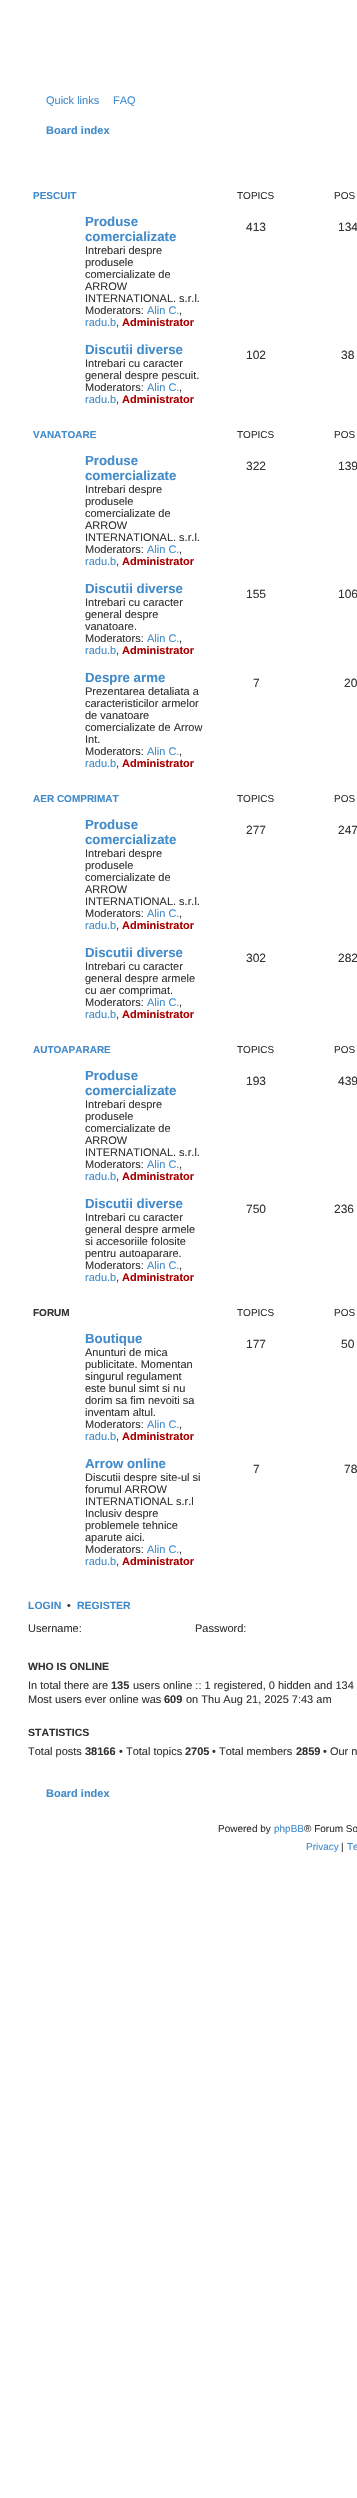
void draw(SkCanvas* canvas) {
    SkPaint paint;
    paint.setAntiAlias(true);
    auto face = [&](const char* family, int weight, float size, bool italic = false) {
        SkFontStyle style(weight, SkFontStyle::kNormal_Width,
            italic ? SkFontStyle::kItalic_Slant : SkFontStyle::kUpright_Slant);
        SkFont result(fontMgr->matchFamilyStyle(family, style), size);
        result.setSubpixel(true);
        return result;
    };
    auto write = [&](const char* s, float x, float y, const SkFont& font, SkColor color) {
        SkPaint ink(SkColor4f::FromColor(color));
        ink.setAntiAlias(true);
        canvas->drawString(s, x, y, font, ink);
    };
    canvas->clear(SK_ColorWHITE);
    auto kFont1 = face("Liberation Sans", 400, 11);
    write("Quick links", 46, 104, kFont1, SkColorSetRGB(66, 139, 202));
    write("FAQ", 113, 104, kFont1, SkColorSetRGB(66, 139, 202));
    auto kFont2 = face("Liberation Sans", 700, 11);
    write("Board index", 46, 134, kFont2, SkColorSetRGB(66, 139, 202));
    auto kFont3 = face("Liberation Sans", 700, 10);
    write("PESCUIT", 33, 199, kFont3, SkColorSetRGB(66, 139, 202));
    auto kFont4 = face("Liberation Sans", 400, 10);
    write("TOPICS", 237, 199, kFont4, SkColorSetRGB(51, 51, 51));
    write("POS", 334, 199, kFont4, SkColorSetRGB(51, 51, 51));
    auto kFont5 = face("Liberation Sans", 700, 13.25f);
    write("Produse", 85, 226, kFont5, SkColorSetRGB(66, 139, 202));
    write("comercializate", 85, 241, kFont5, SkColorSetRGB(66, 139, 202));
    write("Intrebari despre", 85, 254, kFont1, SkColorSetRGB(51, 51, 51));
    write("produsele", 85, 266, kFont1, SkColorSetRGB(51, 51, 51));
    write("comercializate de", 85, 278, kFont1, SkColorSetRGB(51, 51, 51));
    write("ARROW", 85, 290, kFont1, SkColorSetRGB(51, 51, 51));
    write("INTERNATIONAL. s.r.l.", 85, 302, kFont1, SkColorSetRGB(51, 51, 51));
    write("Moderators:", 85, 314, kFont1, SkColorSetRGB(51, 51, 51));
    write("Alin C.", 147, 314, kFont1, SkColorSetRGB(66, 139, 202));
    write(",", 179, 314, kFont1, SkColorSetRGB(51, 51, 51));
    write("radu.b", 85, 326, kFont1, SkColorSetRGB(66, 139, 202));
    write(",", 116, 326, kFont1, SkColorSetRGB(51, 51, 51));
    write("Administrator", 122, 326, kFont2, SkColorSetRGB(170, 0, 0));
    auto kFont6 = face("Liberation Sans", 400, 12);
    write("413", 246, 231, kFont6, SkColorSetRGB(51, 51, 51));
    write("134", 338, 231, kFont6, SkColorSetRGB(51, 51, 51));
    write("Discutii diverse", 85, 354, kFont5, SkColorSetRGB(66, 139, 202));
    write("Intrebari cu caracter", 85, 367, kFont1, SkColorSetRGB(51, 51, 51));
    write("general despre pescuit.", 85, 379, kFont1, SkColorSetRGB(51, 51, 51));
    write("Moderators:", 85, 391, kFont1, SkColorSetRGB(51, 51, 51));
    write("Alin C.", 147, 391, kFont1, SkColorSetRGB(66, 139, 202));
    write(",", 179, 391, kFont1, SkColorSetRGB(51, 51, 51));
    write("radu.b", 85, 403, kFont1, SkColorSetRGB(66, 139, 202));
    write(",", 116, 403, kFont1, SkColorSetRGB(51, 51, 51));
    write("Administrator", 122, 403, kFont2, SkColorSetRGB(170, 0, 0));
    write("102", 246, 359, kFont6, SkColorSetRGB(51, 51, 51));
    write("38", 341, 359, kFont6, SkColorSetRGB(51, 51, 51));
    write("VANATOARE", 33, 438, kFont3, SkColorSetRGB(66, 139, 202));
    write("TOPICS", 237, 438, kFont4, SkColorSetRGB(51, 51, 51));
    write("POS", 334, 438, kFont4, SkColorSetRGB(51, 51, 51));
    write("Produse", 85, 465, kFont5, SkColorSetRGB(66, 139, 202));
    write("comercializate", 85, 480, kFont5, SkColorSetRGB(66, 139, 202));
    write("Intrebari despre", 85, 493, kFont1, SkColorSetRGB(51, 51, 51));
    write("produsele", 85, 505, kFont1, SkColorSetRGB(51, 51, 51));
    write("comercializate de", 85, 517, kFont1, SkColorSetRGB(51, 51, 51));
    write("ARROW", 85, 529, kFont1, SkColorSetRGB(51, 51, 51));
    write("INTERNATIONAL. s.r.l.", 85, 541, kFont1, SkColorSetRGB(51, 51, 51));
    write("Moderators:", 85, 553, kFont1, SkColorSetRGB(51, 51, 51));
    write("Alin C.", 147, 553, kFont1, SkColorSetRGB(66, 139, 202));
    write(",", 179, 553, kFont1, SkColorSetRGB(51, 51, 51));
    write("radu.b", 85, 565, kFont1, SkColorSetRGB(66, 139, 202));
    write(",", 116, 565, kFont1, SkColorSetRGB(51, 51, 51));
    write("Administrator", 122, 565, kFont2, SkColorSetRGB(170, 0, 0));
    write("322", 246, 470, kFont6, SkColorSetRGB(51, 51, 51));
    write("139", 338, 470, kFont6, SkColorSetRGB(51, 51, 51));
    write("Discutii diverse", 85, 593, kFont5, SkColorSetRGB(66, 139, 202));
    write("Intrebari cu caracter", 85, 606, kFont1, SkColorSetRGB(51, 51, 51));
    write("general despre", 85, 618, kFont1, SkColorSetRGB(51, 51, 51));
    write("vanatoare.", 85, 630, kFont1, SkColorSetRGB(51, 51, 51));
    write("Moderators:", 85, 642, kFont1, SkColorSetRGB(51, 51, 51));
    write("Alin C.", 147, 642, kFont1, SkColorSetRGB(66, 139, 202));
    write(",", 179, 642, kFont1, SkColorSetRGB(51, 51, 51));
    write("radu.b", 85, 654, kFont1, SkColorSetRGB(66, 139, 202));
    write(",", 116, 654, kFont1, SkColorSetRGB(51, 51, 51));
    write("Administrator", 122, 654, kFont2, SkColorSetRGB(170, 0, 0));
    write("155", 246, 598, kFont6, SkColorSetRGB(51, 51, 51));
    write("106", 338, 598, kFont6, SkColorSetRGB(51, 51, 51));
    write("Despre arme", 85, 682, kFont5, SkColorSetRGB(66, 139, 202));
    write("Prezentarea detaliata a", 85, 695, kFont1, SkColorSetRGB(51, 51, 51));
    write("caracteristicilor armelor", 85, 707, kFont1, SkColorSetRGB(51, 51, 51));
    write("de vanatoare", 85, 719, kFont1, SkColorSetRGB(51, 51, 51));
    write("comercializate de Arrow", 85, 731, kFont1, SkColorSetRGB(51, 51, 51));
    write("Int.", 85, 743, kFont1, SkColorSetRGB(51, 51, 51));
    write("Moderators:", 85, 755, kFont1, SkColorSetRGB(51, 51, 51));
    write("Alin C.", 147, 755, kFont1, SkColorSetRGB(66, 139, 202));
    write(",", 179, 755, kFont1, SkColorSetRGB(51, 51, 51));
    write("radu.b", 85, 767, kFont1, SkColorSetRGB(66, 139, 202));
    write(",", 116, 767, kFont1, SkColorSetRGB(51, 51, 51));
    write("Administrator", 122, 767, kFont2, SkColorSetRGB(170, 0, 0));
    write("7", 253, 687, kFont6, SkColorSetRGB(51, 51, 51));
    write("20", 344, 687, kFont6, SkColorSetRGB(51, 51, 51));
    write("AER COMPRIMAT", 33, 802, kFont3, SkColorSetRGB(66, 139, 202));
    write("TOPICS", 237, 802, kFont4, SkColorSetRGB(51, 51, 51));
    write("POS", 334, 802, kFont4, SkColorSetRGB(51, 51, 51));
    write("Produse", 85, 829, kFont5, SkColorSetRGB(66, 139, 202));
    write("comercializate", 85, 844, kFont5, SkColorSetRGB(66, 139, 202));
    write("Intrebari despre", 85, 857, kFont1, SkColorSetRGB(51, 51, 51));
    write("produsele", 85, 869, kFont1, SkColorSetRGB(51, 51, 51));
    write("comercializate de", 85, 881, kFont1, SkColorSetRGB(51, 51, 51));
    write("ARROW", 85, 893, kFont1, SkColorSetRGB(51, 51, 51));
    write("INTERNATIONAL. s.r.l.", 85, 905, kFont1, SkColorSetRGB(51, 51, 51));
    write("Moderators:", 85, 917, kFont1, SkColorSetRGB(51, 51, 51));
    write("Alin C.", 147, 917, kFont1, SkColorSetRGB(66, 139, 202));
    write(",", 179, 917, kFont1, SkColorSetRGB(51, 51, 51));
    write("radu.b", 85, 929, kFont1, SkColorSetRGB(66, 139, 202));
    write(",", 116, 929, kFont1, SkColorSetRGB(51, 51, 51));
    write("Administrator", 122, 929, kFont2, SkColorSetRGB(170, 0, 0));
    write("277", 246, 834, kFont6, SkColorSetRGB(51, 51, 51));
    write("247", 338, 834, kFont6, SkColorSetRGB(51, 51, 51));
    write("Discutii diverse", 85, 957, kFont5, SkColorSetRGB(66, 139, 202));
    write("Intrebari cu caracter", 85, 970, kFont1, SkColorSetRGB(51, 51, 51));
    write("general despre armele", 85, 982, kFont1, SkColorSetRGB(51, 51, 51));
    write("cu aer comprimat.", 85, 994, kFont1, SkColorSetRGB(51, 51, 51));
    write("Moderators:", 85, 1006, kFont1, SkColorSetRGB(51, 51, 51));
    write("Alin C.", 147, 1006, kFont1, SkColorSetRGB(66, 139, 202));
    write(",", 179, 1006, kFont1, SkColorSetRGB(51, 51, 51));
    write("radu.b", 85, 1018, kFont1, SkColorSetRGB(66, 139, 202));
    write(",", 116, 1018, kFont1, SkColorSetRGB(51, 51, 51));
    write("Administrator", 122, 1018, kFont2, SkColorSetRGB(170, 0, 0));
    write("302", 246, 962, kFont6, SkColorSetRGB(51, 51, 51));
    write("282", 338, 962, kFont6, SkColorSetRGB(51, 51, 51));
    write("AUTOAPARARE", 33, 1053, kFont3, SkColorSetRGB(66, 139, 202));
    write("TOPICS", 237, 1053, kFont4, SkColorSetRGB(51, 51, 51));
    write("POS", 334, 1053, kFont4, SkColorSetRGB(51, 51, 51));
    write("Produse", 85, 1080, kFont5, SkColorSetRGB(66, 139, 202));
    write("comercializate", 85, 1095, kFont5, SkColorSetRGB(66, 139, 202));
    write("Intrebari despre", 85, 1108, kFont1, SkColorSetRGB(51, 51, 51));
    write("produsele", 85, 1120, kFont1, SkColorSetRGB(51, 51, 51));
    write("comercializate de", 85, 1132, kFont1, SkColorSetRGB(51, 51, 51));
    write("ARROW", 85, 1144, kFont1, SkColorSetRGB(51, 51, 51));
    write("INTERNATIONAL. s.r.l.", 85, 1156, kFont1, SkColorSetRGB(51, 51, 51));
    write("Moderators:", 85, 1168, kFont1, SkColorSetRGB(51, 51, 51));
    write("Alin C.", 147, 1168, kFont1, SkColorSetRGB(66, 139, 202));
    write(",", 179, 1168, kFont1, SkColorSetRGB(51, 51, 51));
    write("radu.b", 85, 1180, kFont1, SkColorSetRGB(66, 139, 202));
    write(",", 116, 1180, kFont1, SkColorSetRGB(51, 51, 51));
    write("Administrator", 122, 1180, kFont2, SkColorSetRGB(170, 0, 0));
    write("193", 246, 1085, kFont6, SkColorSetRGB(51, 51, 51));
    write("439", 338, 1085, kFont6, SkColorSetRGB(51, 51, 51));
    write("Discutii diverse", 85, 1208, kFont5, SkColorSetRGB(66, 139, 202));
    write("Intrebari cu caracter", 85, 1221, kFont1, SkColorSetRGB(51, 51, 51));
    write("general despre armele", 85, 1233, kFont1, SkColorSetRGB(51, 51, 51));
    write("si accesoriile folosite", 85, 1245, kFont1, SkColorSetRGB(51, 51, 51));
    write("pentru autoaparare.", 85, 1257, kFont1, SkColorSetRGB(51, 51, 51));
    write("Moderators:", 85, 1269, kFont1, SkColorSetRGB(51, 51, 51));
    write("Alin C.", 147, 1269, kFont1, SkColorSetRGB(66, 139, 202));
    write(",", 179, 1269, kFont1, SkColorSetRGB(51, 51, 51));
    write("radu.b", 85, 1281, kFont1, SkColorSetRGB(66, 139, 202));
    write(",", 116, 1281, kFont1, SkColorSetRGB(51, 51, 51));
    write("Administrator", 122, 1281, kFont2, SkColorSetRGB(170, 0, 0));
    write("750", 246, 1213, kFont6, SkColorSetRGB(51, 51, 51));
    write("236", 334, 1213, kFont6, SkColorSetRGB(51, 51, 51));
    write("FORUM", 33, 1316, kFont3, SkColorSetRGB(51, 51, 51));
    write("TOPICS", 237, 1316, kFont4, SkColorSetRGB(51, 51, 51));
    write("POS", 334, 1316, kFont4, SkColorSetRGB(51, 51, 51));
    write("Boutique", 85, 1343, kFont5, SkColorSetRGB(66, 139, 202));
    write("Anunturi de mica", 85, 1356, kFont1, SkColorSetRGB(51, 51, 51));
    write("publicitate. Momentan", 85, 1368, kFont1, SkColorSetRGB(51, 51, 51));
    write("singurul regulament", 85, 1380, kFont1, SkColorSetRGB(51, 51, 51));
    write("este bunul simt si nu", 85, 1392, kFont1, SkColorSetRGB(51, 51, 51));
    write("dorim sa fim nevoiti sa", 85, 1404, kFont1, SkColorSetRGB(51, 51, 51));
    write("inventam altul.", 85, 1416, kFont1, SkColorSetRGB(51, 51, 51));
    write("Moderators:", 85, 1428, kFont1, SkColorSetRGB(51, 51, 51));
    write("Alin C.", 147, 1428, kFont1, SkColorSetRGB(66, 139, 202));
    write(",", 179, 1428, kFont1, SkColorSetRGB(51, 51, 51));
    write("radu.b", 85, 1440, kFont1, SkColorSetRGB(66, 139, 202));
    write(",", 116, 1440, kFont1, SkColorSetRGB(51, 51, 51));
    write("Administrator", 122, 1440, kFont2, SkColorSetRGB(170, 0, 0));
    write("177", 246, 1348, kFont6, SkColorSetRGB(51, 51, 51));
    write("50", 341, 1348, kFont6, SkColorSetRGB(51, 51, 51));
    write("Arrow online", 85, 1468, kFont5, SkColorSetRGB(66, 139, 202));
    write("Discutii despre site-ul si", 85, 1481, kFont1, SkColorSetRGB(51, 51, 51));
    write("forumul ARROW", 85, 1493, kFont1, SkColorSetRGB(51, 51, 51));
    write("INTERNATIONAL s.r.l", 85, 1505, kFont1, SkColorSetRGB(51, 51, 51));
    write("Inclusiv despre", 85, 1517, kFont1, SkColorSetRGB(51, 51, 51));
    write("problemele tehnice", 85, 1529, kFont1, SkColorSetRGB(51, 51, 51));
    write("aparute aici.", 85, 1541, kFont1, SkColorSetRGB(51, 51, 51));
    write("Moderators:", 85, 1553, kFont1, SkColorSetRGB(51, 51, 51));
    write("Alin C.", 147, 1553, kFont1, SkColorSetRGB(66, 139, 202));
    write(",", 179, 1553, kFont1, SkColorSetRGB(51, 51, 51));
    write("radu.b", 85, 1565, kFont1, SkColorSetRGB(66, 139, 202));
    write(",", 116, 1565, kFont1, SkColorSetRGB(51, 51, 51));
    write("Administrator", 122, 1565, kFont2, SkColorSetRGB(170, 0, 0));
    write("7", 253, 1473, kFont6, SkColorSetRGB(51, 51, 51));
    write("78", 344, 1473, kFont6, SkColorSetRGB(51, 51, 51));
    auto kFont7 = face("Liberation Sans", 700, 10.5f);
    write("LOGIN", 28, 1609, kFont7, SkColorSetRGB(66, 139, 202));
    write("•", 67, 1609, kFont7, SkColorSetRGB(51, 51, 51));
    write("REGISTER", 77, 1609, kFont7, SkColorSetRGB(66, 139, 202));
    write("Username:", 28, 1632, kFont1, SkColorSetRGB(51, 51, 51));
    write("Password:", 195, 1632, kFont1, SkColorSetRGB(51, 51, 51));
    write("WHO IS ONLINE", 28, 1670, kFont7, SkColorSetRGB(51, 51, 51));
    write("In total there are", 28, 1689, kFont1, SkColorSetRGB(51, 51, 51));
    write("135", 111, 1689, kFont2, SkColorSetRGB(51, 51, 51));
    write("users online :: 1 registered, 0 hidden and 134", 133, 1689, kFont1, SkColorSetRGB(51, 51, 51));
    write("Most users ever online was", 28, 1703, kFont1, SkColorSetRGB(51, 51, 51));
    write("609", 164, 1703, kFont2, SkColorSetRGB(51, 51, 51));
    write("on Thu Aug 21, 2025 7:43 am", 186, 1703, kFont1, SkColorSetRGB(51, 51, 51));
    write("STATISTICS", 28, 1736, kFont7, SkColorSetRGB(51, 51, 51));
    write("Total posts", 28, 1755, kFont1, SkColorSetRGB(51, 51, 51));
    write("38166", 85, 1755, kFont2, SkColorSetRGB(51, 51, 51));
    write("• Total topics", 119, 1755, kFont1, SkColorSetRGB(51, 51, 51));
    write("2705", 185, 1755, kFont2, SkColorSetRGB(51, 51, 51));
    write("• Total members", 212, 1755, kFont1, SkColorSetRGB(51, 51, 51));
    write("2859", 296, 1755, kFont2, SkColorSetRGB(51, 51, 51));
    write("• Our n", 323, 1755, kFont1, SkColorSetRGB(51, 51, 51));
    write("Board index", 46, 1797, kFont2, SkColorSetRGB(66, 139, 202));
    write("Powered by", 218, 1832, kFont4, SkColorSetRGB(51, 51, 51));
    write("phpBB", 274, 1832, kFont4, SkColorSetRGB(66, 139, 202));
    write("® Forum So", 304, 1832, kFont4, SkColorSetRGB(51, 51, 51));
    write("Privacy", 306, 1850, kFont4, SkColorSetRGB(66, 139, 202));
    write("|", 341, 1850, kFont4, SkColorSetRGB(51, 51, 51));
    write("Te", 347, 1850, kFont4, SkColorSetRGB(66, 139, 202));
}
